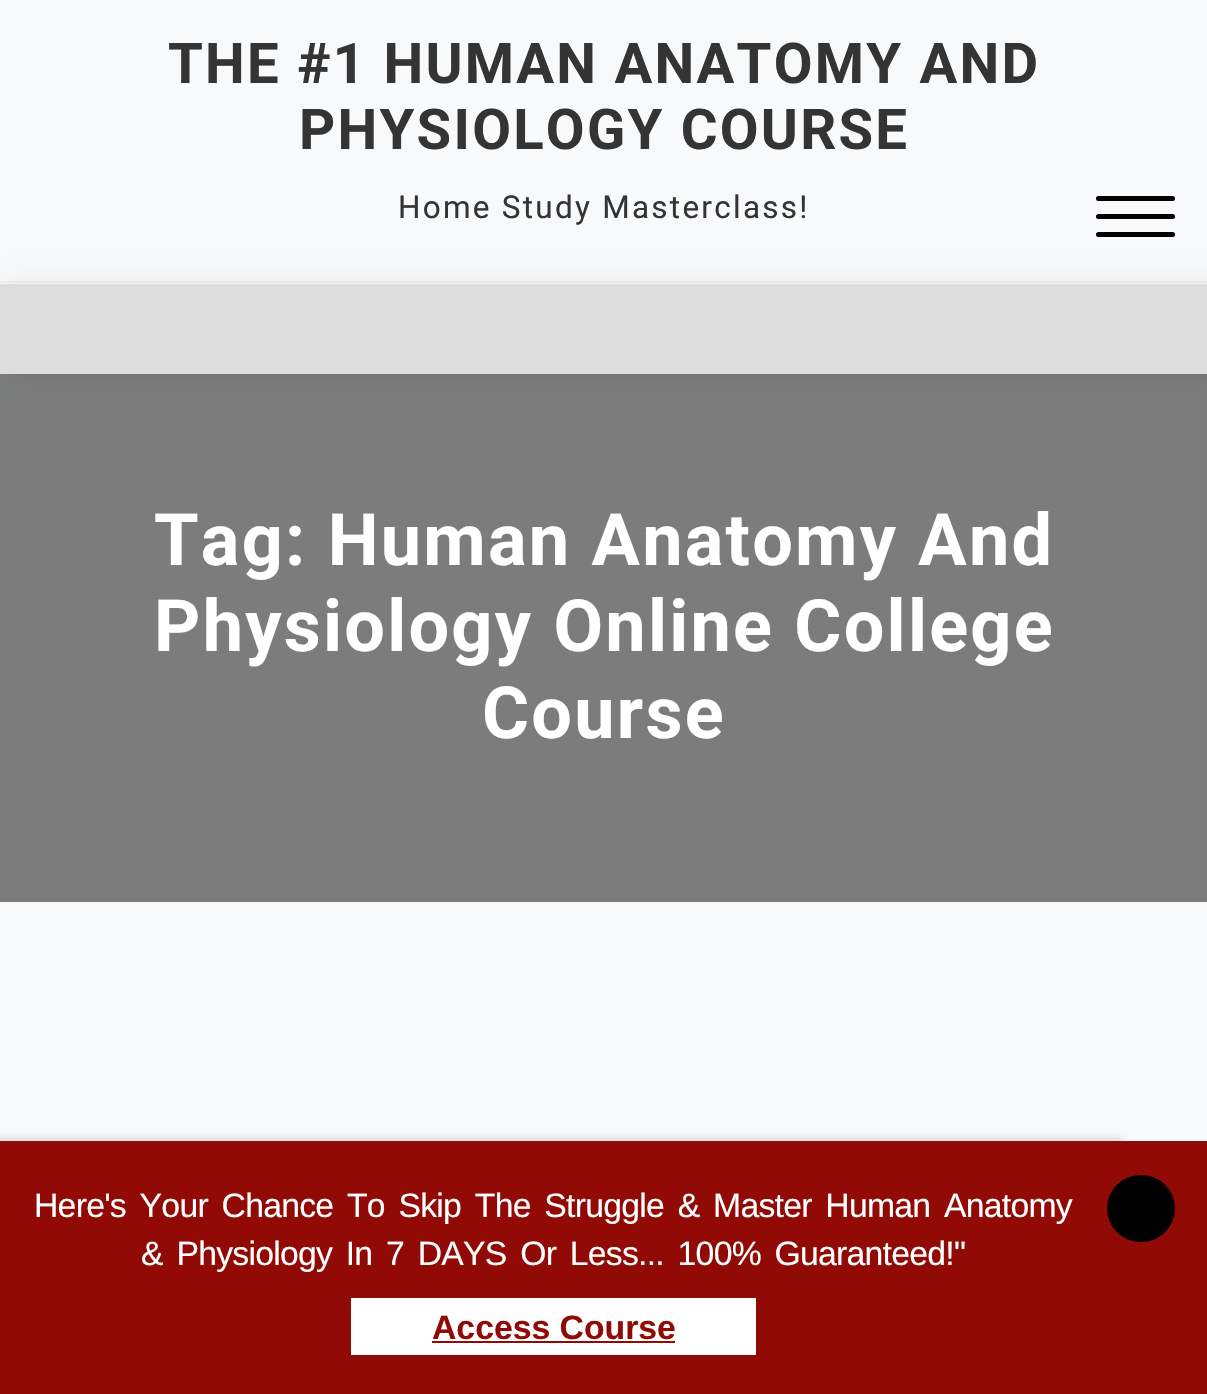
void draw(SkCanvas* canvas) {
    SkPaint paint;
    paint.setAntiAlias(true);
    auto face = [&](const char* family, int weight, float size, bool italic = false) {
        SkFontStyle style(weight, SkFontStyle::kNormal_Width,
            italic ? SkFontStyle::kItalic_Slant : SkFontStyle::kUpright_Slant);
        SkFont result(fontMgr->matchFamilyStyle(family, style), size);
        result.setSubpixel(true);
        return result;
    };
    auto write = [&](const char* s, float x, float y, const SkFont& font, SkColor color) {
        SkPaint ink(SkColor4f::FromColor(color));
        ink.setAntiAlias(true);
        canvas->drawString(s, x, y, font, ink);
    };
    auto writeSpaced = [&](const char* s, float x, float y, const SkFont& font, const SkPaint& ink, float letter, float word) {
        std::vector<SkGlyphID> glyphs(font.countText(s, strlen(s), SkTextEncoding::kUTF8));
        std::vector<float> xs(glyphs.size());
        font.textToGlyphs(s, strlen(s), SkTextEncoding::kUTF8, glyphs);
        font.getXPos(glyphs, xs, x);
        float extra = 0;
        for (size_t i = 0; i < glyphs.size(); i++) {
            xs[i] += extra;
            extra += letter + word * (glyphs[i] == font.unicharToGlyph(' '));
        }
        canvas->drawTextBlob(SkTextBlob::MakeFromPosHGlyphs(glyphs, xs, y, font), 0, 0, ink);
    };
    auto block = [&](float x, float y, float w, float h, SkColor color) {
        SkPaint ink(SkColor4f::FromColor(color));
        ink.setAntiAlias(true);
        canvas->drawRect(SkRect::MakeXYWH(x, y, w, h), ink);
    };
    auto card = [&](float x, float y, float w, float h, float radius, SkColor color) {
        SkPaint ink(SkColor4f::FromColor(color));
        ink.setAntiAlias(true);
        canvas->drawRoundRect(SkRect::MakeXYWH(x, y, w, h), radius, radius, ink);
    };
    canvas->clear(SkColorSetRGB(248, 249, 250));
    block(0, 281, 1207, 2, SkColorSetRGB(238, 238, 238));
    auto kFont1 = face("Roboto", 700, 56.25f);
    paint.setColor(SkColorSetRGB(52, 52, 52));
    writeSpaced("THE #1 HUMAN ANATOMY AND", 168, 83, kFont1, paint, 2.25f, 0);
    writeSpaced("PHYSIOLOGY COURSE", 299, 149, kFont1, paint, 2.25f, 0);
    auto kFont2 = face("Roboto", 400, 31.5f);
    writeSpaced("Home Study Masterclass!", 398, 218, kFont2, paint, 2.25f, 0);
    paint.setColor(SkColorSetARGB(20, 5, 5, 6));
    paint.setMaskFilter(SkMaskFilter::MakeBlur(kNormal_SkBlurStyle, 11));
    canvas->drawRect(SkRect::MakeXYWH(11, 284, 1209, 90), paint);
    paint.setMaskFilter(nullptr);
    block(0, 284, 1207, 90, SkColorSetRGB(221, 221, 221));
    card(1096, 196, 79, 5, 2.5f, SK_ColorBLACK);
    card(1096, 214, 79, 5, 2.5f, SK_ColorBLACK);
    card(1096, 232, 79, 5, 2.5f, SK_ColorBLACK);
    block(0, 374, 1207, 528, SkColorSetARGB(128, 0, 0, 0));
    auto kFont3 = face("Roboto", 700, 72);
    paint.setColor(SK_ColorWHITE);
    writeSpaced("Tag: Human Anatomy And", 154, 565, kFont3, paint, 2.25f, 0);
    writeSpaced("Physiology Online College", 154, 651, kFont3, paint, 2.25f, 0);
    writeSpaced("Course", 482, 738, kFont3, paint, 2.25f, 0);
    paint.setColor(SkColorSetARGB(38, 0, 0, 0));
    paint.setMaskFilter(SkMaskFilter::MakeBlur(kNormal_SkBlurStyle, 3.5f));
    canvas->drawRect(SkRect::MakeXYWH(-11, 1139, 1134, 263), paint);
    paint.setMaskFilter(nullptr);
    block(0, 1141, 1207, 253, SkColorSetRGB(145, 10, 6));
    auto kFont4 = face("Liberation Sans", 400, 33.75f);
    paint.setColor(SK_ColorWHITE);
    writeSpaced("Here's Your Chance To Skip The Struggle & Master Human Anatomy", 34, 1217, kFont4, paint, -0.75f, 5);
    writeSpaced("& Physiology In 7 DAYS Or Less... 100% Guaranteed!\"", 141, 1265, kFont4, paint, -0.75f, 5);
    card(1107, 1175, 68, 67, 33.5f, SK_ColorBLACK);
    block(351, 1298, 405, 57, SK_ColorWHITE);
    auto kFont5 = face("Liberation Sans", 700, 33.75f);
    write("Access Course", 432, 1339, kFont5, SkColorSetRGB(145, 10, 6));
    block(432, 1341, 243, 2, SkColorSetRGB(145, 10, 6));
}
